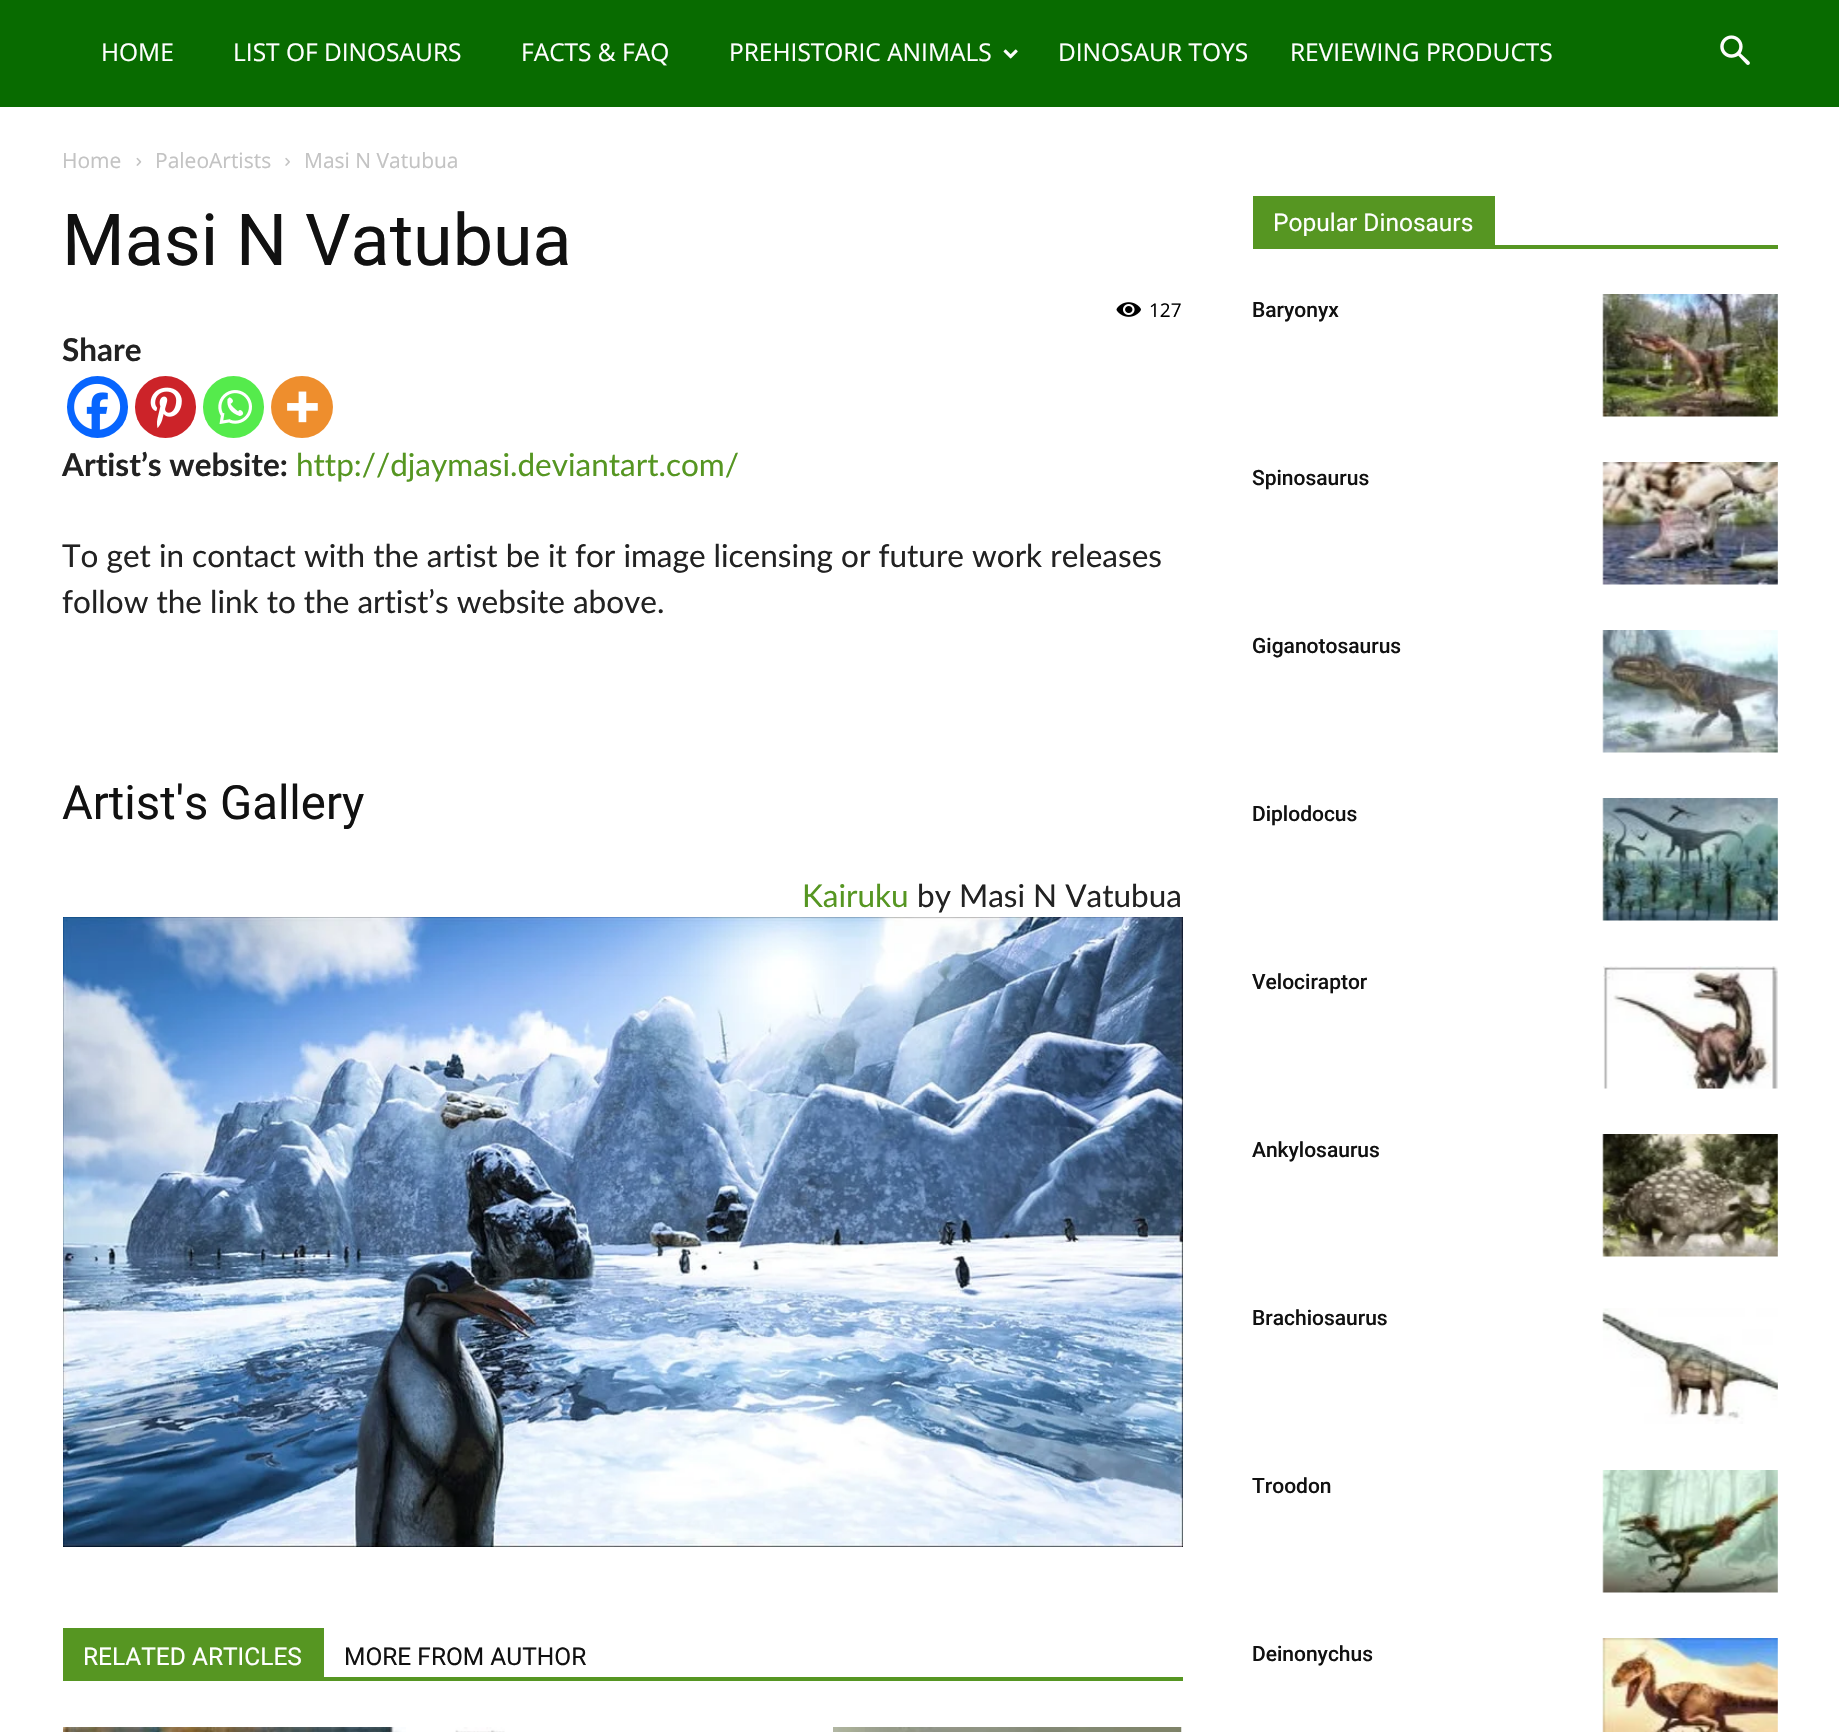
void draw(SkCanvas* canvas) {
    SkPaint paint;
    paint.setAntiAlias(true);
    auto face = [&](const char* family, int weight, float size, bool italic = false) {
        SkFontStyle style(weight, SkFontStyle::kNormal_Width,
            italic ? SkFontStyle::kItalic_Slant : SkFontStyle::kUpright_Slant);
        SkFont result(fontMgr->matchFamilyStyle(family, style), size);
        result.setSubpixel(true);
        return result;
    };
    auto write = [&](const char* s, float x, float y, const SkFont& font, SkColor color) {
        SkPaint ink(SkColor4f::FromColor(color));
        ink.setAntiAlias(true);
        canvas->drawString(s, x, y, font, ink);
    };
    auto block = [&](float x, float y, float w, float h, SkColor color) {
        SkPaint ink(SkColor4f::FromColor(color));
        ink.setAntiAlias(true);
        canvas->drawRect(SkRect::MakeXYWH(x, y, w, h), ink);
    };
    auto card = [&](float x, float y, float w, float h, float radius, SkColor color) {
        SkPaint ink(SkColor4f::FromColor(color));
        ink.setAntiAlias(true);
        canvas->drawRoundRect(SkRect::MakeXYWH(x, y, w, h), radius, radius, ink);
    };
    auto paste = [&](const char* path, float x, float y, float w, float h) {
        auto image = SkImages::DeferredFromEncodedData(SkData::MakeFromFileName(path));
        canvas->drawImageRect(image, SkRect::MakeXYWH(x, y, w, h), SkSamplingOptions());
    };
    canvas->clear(SK_ColorWHITE);
    block(0, 0, 1839, 107, SkColorSetRGB(8, 107, 0));
    auto kFont1 = face("Open Sans", 400, 24.5f);
    write("HOME", 101, 61, kFont1, SK_ColorWHITE);
    write("LIST OF DINOSAURS", 233, 61, kFont1, SK_ColorWHITE);
    write("FACTS & FAQ", 521, 61, kFont1, SK_ColorWHITE);
    write("PREHISTORIC ANIMALS", 729, 61, kFont1, SK_ColorWHITE);
    paste("pic1.png", 1003, 49, 15, 10);
    write("DINOSAUR TOYS", 1058, 61, kFont1, SK_ColorWHITE);
    write("REVIEWING PRODUCTS", 1290, 61, kFont1, SK_ColorWHITE);
    paste("pic2.png", 1720, 35, 30, 30);
    auto kFont2 = face("Open Sans", 400, 21);
    write("Home", 62, 168, kFont2, SkColorSetRGB(195, 195, 195));
    paste("pic3.png", 136, 157, 6, 9);
    write("PaleoArtists", 155, 168, kFont2, SkColorSetRGB(195, 195, 195));
    paste("pic4.png", 285, 157, 5, 9);
    write("Masi N Vatubua", 304, 168, kFont2, SkColorSetRGB(195, 195, 195));
    auto kFont3 = face("Roboto", 400, 71.75f);
    write("Masi N Vatubua", 62, 265, kFont3, SkColorSetRGB(17, 17, 17));
    paste("pic5.png", 1116, 302, 25, 15);
    auto kFont4 = face("Open Sans", 400, 19);
    write("127", 1149, 317, kFont4, SK_ColorBLACK);
    auto kFont5 = face("Lato", 700, 31.5f);
    write("Share", 62, 361, kFont5, SkColorSetRGB(34, 34, 34));
    card(67, 376, 61, 62, 30.5f, SkColorSetRGB(7, 101, 254));
    paste("pic6.png", 74, 383, 47, 47);
    card(135, 376, 61, 62, 30.5f, SkColorSetRGB(204, 35, 41));
    paste("pic7.png", 150, 387, 32, 41);
    card(203, 376, 61, 62, 30.5f, SkColorSetRGB(85, 235, 76));
    paste("pic8.png", 218, 390, 34, 34);
    paint.setColor(SkColorSetRGB(238, 142, 45));
    canvas->drawCircle(302, 407, 31, paint);
    paste("pic9.png", 287, 391, 31, 32);
    write("Artist’s website:", 62, 476, kFont5, SkColorSetRGB(34, 34, 34));
    auto kFont6 = face("Lato", 400, 31.5f);
    write("http://djaymasi.deviantart.com/", 296, 476, kFont6, SkColorSetRGB(86, 150, 34));
    write("To get in contact with the artist be it for image licensing or future work releases", 62, 567, kFont6, SkColorSetRGB(34, 34, 34));
    write("follow the link to the artist’s website above.", 62, 613, kFont6, SkColorSetRGB(34, 34, 34));
    auto kFont7 = face("Roboto", 400, 47.25f);
    write("Artist's Gallery", 62, 819, kFont7, SkColorSetRGB(17, 17, 17));
    write("Kairuku", 802, 907, kFont6, SkColorSetRGB(86, 150, 34));
    write("by Masi N Vatubua", 917, 907, kFont6, SkColorSetRGB(34, 34, 34));
    paste("pic10.png", 63, 917, 1120, 630);
    block(63, 1677, 1120, 4, SkColorSetRGB(86, 150, 34));
    block(63, 1628, 261, 49, SkColorSetRGB(86, 150, 34));
    auto kFont8 = face("Roboto", 400, 24.5f);
    write("RELATED ARTICLES", 83, 1665, kFont8, SK_ColorWHITE);
    write("MORE FROM AUTHOR", 344, 1665, kFont8, SkColorSetRGB(17, 17, 17));
    paste("pic11.png", 63, 1727, 343, 5);
    paste("pic12.png", 455, 1727, 50, 5);
    paste("pic13.png", 833, 1727, 349, 5);
    block(1253, 245, 525, 4, SkColorSetRGB(86, 150, 34));
    block(1253, 196, 242, 49, SkColorSetRGB(86, 150, 34));
    write("Popular Dinosaurs", 1273, 231, kFont8, SK_ColorWHITE);
    auto kFont9 = face("Roboto", 500, 21);
    write("Baryonyx", 1252, 317, kFont9, SkColorSetRGB(17, 17, 17));
    paste("pic14.png", 1602, 294, 176, 123);
    write("Spinosaurus", 1252, 485, kFont9, SkColorSetRGB(17, 17, 17));
    paste("pic15.png", 1602, 462, 176, 123);
    write("Giganotosaurus", 1252, 653, kFont9, SkColorSetRGB(17, 17, 17));
    paste("pic16.png", 1602, 630, 176, 123);
    write("Diplodocus", 1252, 821, kFont9, SkColorSetRGB(17, 17, 17));
    paste("pic17.png", 1602, 798, 176, 123);
    write("Velociraptor", 1252, 989, kFont9, SkColorSetRGB(17, 17, 17));
    paste("pic18.png", 1603, 966, 175, 123);
    write("Ankylosaurus", 1252, 1157, kFont9, SkColorSetRGB(17, 17, 17));
    paste("pic19.png", 1602, 1134, 176, 123);
    write("Brachiosaurus", 1252, 1325, kFont9, SkColorSetRGB(17, 17, 17));
    paste("pic20.png", 1602, 1308, 176, 116);
    write("Troodon", 1252, 1493, kFont9, SkColorSetRGB(17, 17, 17));
    paste("pic21.png", 1602, 1470, 176, 123);
    write("Deinonychus", 1252, 1661, kFont9, SkColorSetRGB(17, 17, 17));
    paste("pic22.png", 1602, 1638, 176, 94);
}
